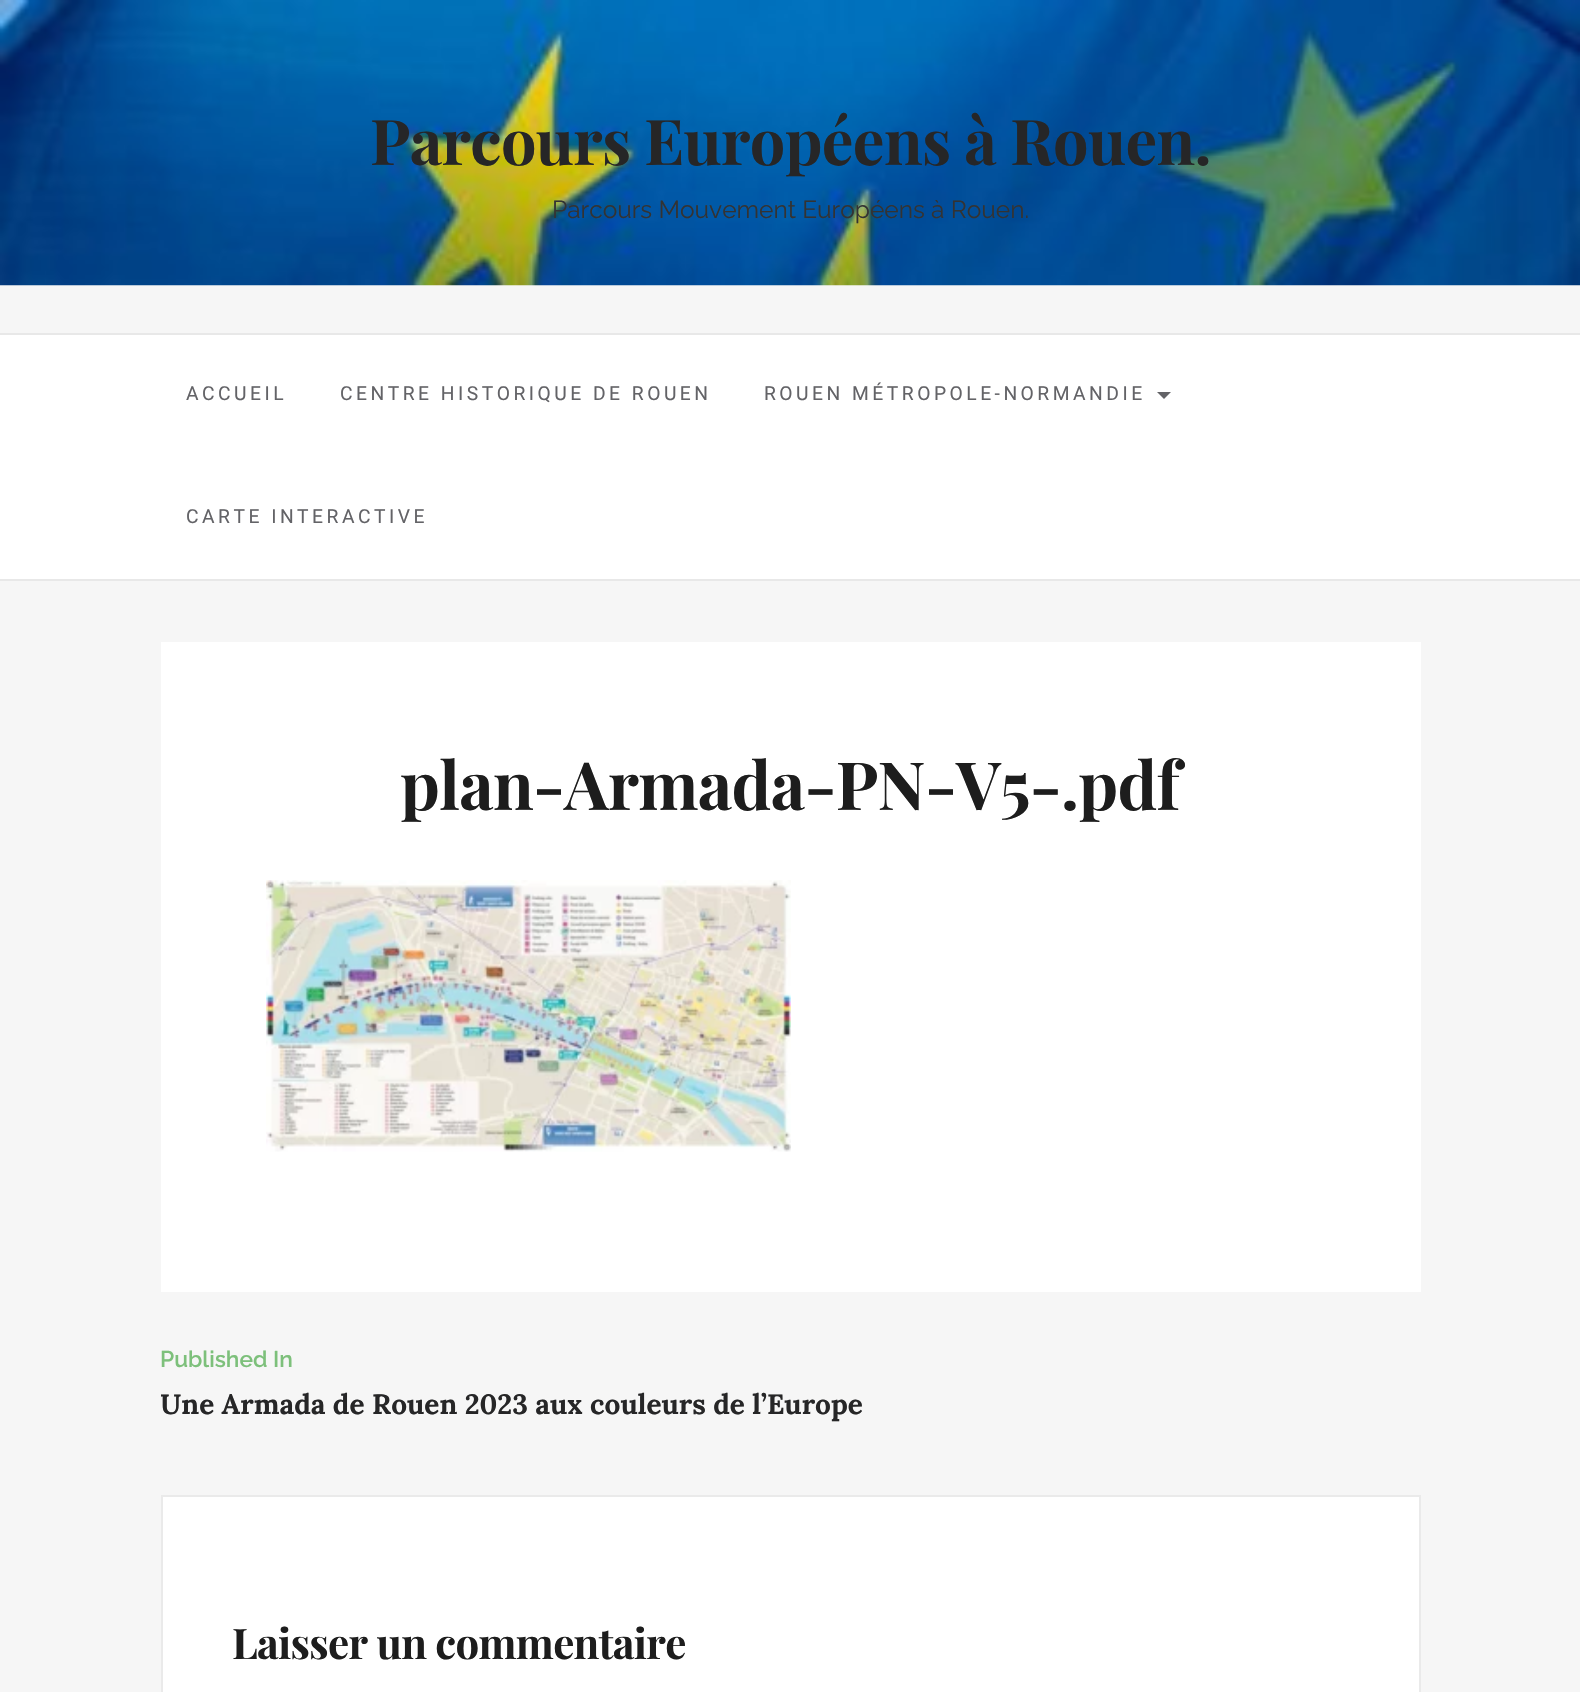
void draw(SkCanvas* canvas) {
    SkPaint paint;
    paint.setAntiAlias(true);
    auto face = [&](const char* family, int weight, float size, bool italic = false) {
        SkFontStyle style(weight, SkFontStyle::kNormal_Width,
            italic ? SkFontStyle::kItalic_Slant : SkFontStyle::kUpright_Slant);
        SkFont result(fontMgr->matchFamilyStyle(family, style), size);
        result.setSubpixel(true);
        return result;
    };
    auto write = [&](const char* s, float x, float y, const SkFont& font, SkColor color) {
        SkPaint ink(SkColor4f::FromColor(color));
        ink.setAntiAlias(true);
        canvas->drawString(s, x, y, font, ink);
    };
    auto writeSpaced = [&](const char* s, float x, float y, const SkFont& font, const SkPaint& ink, float letter, float word) {
        std::vector<SkGlyphID> glyphs(font.countText(s, strlen(s), SkTextEncoding::kUTF8));
        std::vector<float> xs(glyphs.size());
        font.textToGlyphs(s, strlen(s), SkTextEncoding::kUTF8, glyphs);
        font.getXPos(glyphs, xs, x);
        float extra = 0;
        for (size_t i = 0; i < glyphs.size(); i++) {
            xs[i] += extra;
            extra += letter + word * (glyphs[i] == font.unicharToGlyph(' '));
        }
        canvas->drawTextBlob(SkTextBlob::MakeFromPosHGlyphs(glyphs, xs, y, font), 0, 0, ink);
    };
    auto block = [&](float x, float y, float w, float h, SkColor color) {
        SkPaint ink(SkColor4f::FromColor(color));
        ink.setAntiAlias(true);
        canvas->drawRect(SkRect::MakeXYWH(x, y, w, h), ink);
    };
    auto paste = [&](const char* path, float x, float y, float w, float h) {
        auto image = SkImages::DeferredFromEncodedData(SkData::MakeFromFileName(path));
        canvas->drawImageRect(image, SkRect::MakeXYWH(x, y, w, h), SkSamplingOptions());
    };
    canvas->clear(SkColorSetRGB(246, 246, 246));
    paste("pic1.png", 0, 0, 1580, 286);
    auto kFont1 = face("Playfair Display", 700, 63);
    paint.setColor(SkColorSetRGB(38, 38, 39));
    writeSpaced("Parcours Européens à Rouen.", 370, 165, kFont1, paint, -0.7f, 0);
    auto kFont2 = face("Raleway", 400, 24.5f);
    write("Parcours Mouvement Européens à Rouen.", 552, 218, kFont2, SkColorSetRGB(51, 51, 51));
    block(0, 335, 1580, 244, SK_ColorWHITE);
    block(0, 333, 1580, 2, SkColorSetRGB(232, 232, 232));
    block(0, 579, 1580, 2, SkColorSetRGB(232, 232, 232));
    auto kFont3 = face("Roboto", 400, 19.25f);
    paint.setColor(SkColorSetRGB(99, 99, 103));
    writeSpaced("ACCUEIL", 186, 400, kFont3, paint, 3.5f, 0);
    writeSpaced("CENTRE HISTORIQUE DE ROUEN", 340, 400, kFont3, paint, 3.5f, 0);
    writeSpaced("ROUEN MÉTROPOLE-NORMANDIE", 764, 400, kFont3, paint, 3.5f, 0);
    canvas->drawPath(SkPathBuilder().moveTo(1157, 392).lineTo(1171, 392).lineTo(1164, 399).close().detach(), paint);
    writeSpaced("CARTE INTERACTIVE", 186, 523, kFont3, paint, 3.5f, 0);
    block(161, 642, 1260, 650, SK_ColorWHITE);
    auto kFont4 = face("Playfair Display", 700, 66.5f);
    paint.setColor(SkColorSetRGB(29, 29, 29));
    writeSpaced("plan-Armada-PN-V5-.pdf", 400, 810, kFont4, paint, -0.7f, 0);
    paste("pic2.png", 266, 880, 525, 272);
    auto kFont5 = face("Raleway", 600, 22.75f);
    write("Published In", 160, 1367, kFont5, SkColorSetRGB(125, 192, 123));
    canvas->save();
    canvas->clipRect(SkRect::MakeXYWH(161, 1344, 1260, 81));
    auto kFont6 = face("Lora", 700, 28);
    write("Une Armada de Rouen 2023 aux couleurs de l’Europe", 160, 1414, kFont6, SkColorSetRGB(38, 38, 39));
    canvas->restore();
    paint.setColor(SK_ColorWHITE);
    canvas->drawRect(SkRect::MakeXYWH(162, 1496, 1258, 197), paint);
    paint.setStyle(SkPaint::kStroke_Style);
    paint.setStrokeWidth(2);
    paint.setColor(SkColorSetRGB(234, 234, 234));
    canvas->drawRect(SkRect::MakeXYWH(162, 1496, 1258, 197), paint);
    auto kFont7 = face("Playfair Display", 700, 42);
    paint.setStyle(SkPaint::kFill_Style);
    paint.setColor(SkColorSetRGB(29, 29, 29));
    writeSpaced("Laisser un commentaire", 232, 1659, kFont7, paint, -0.7f, 0);
}
